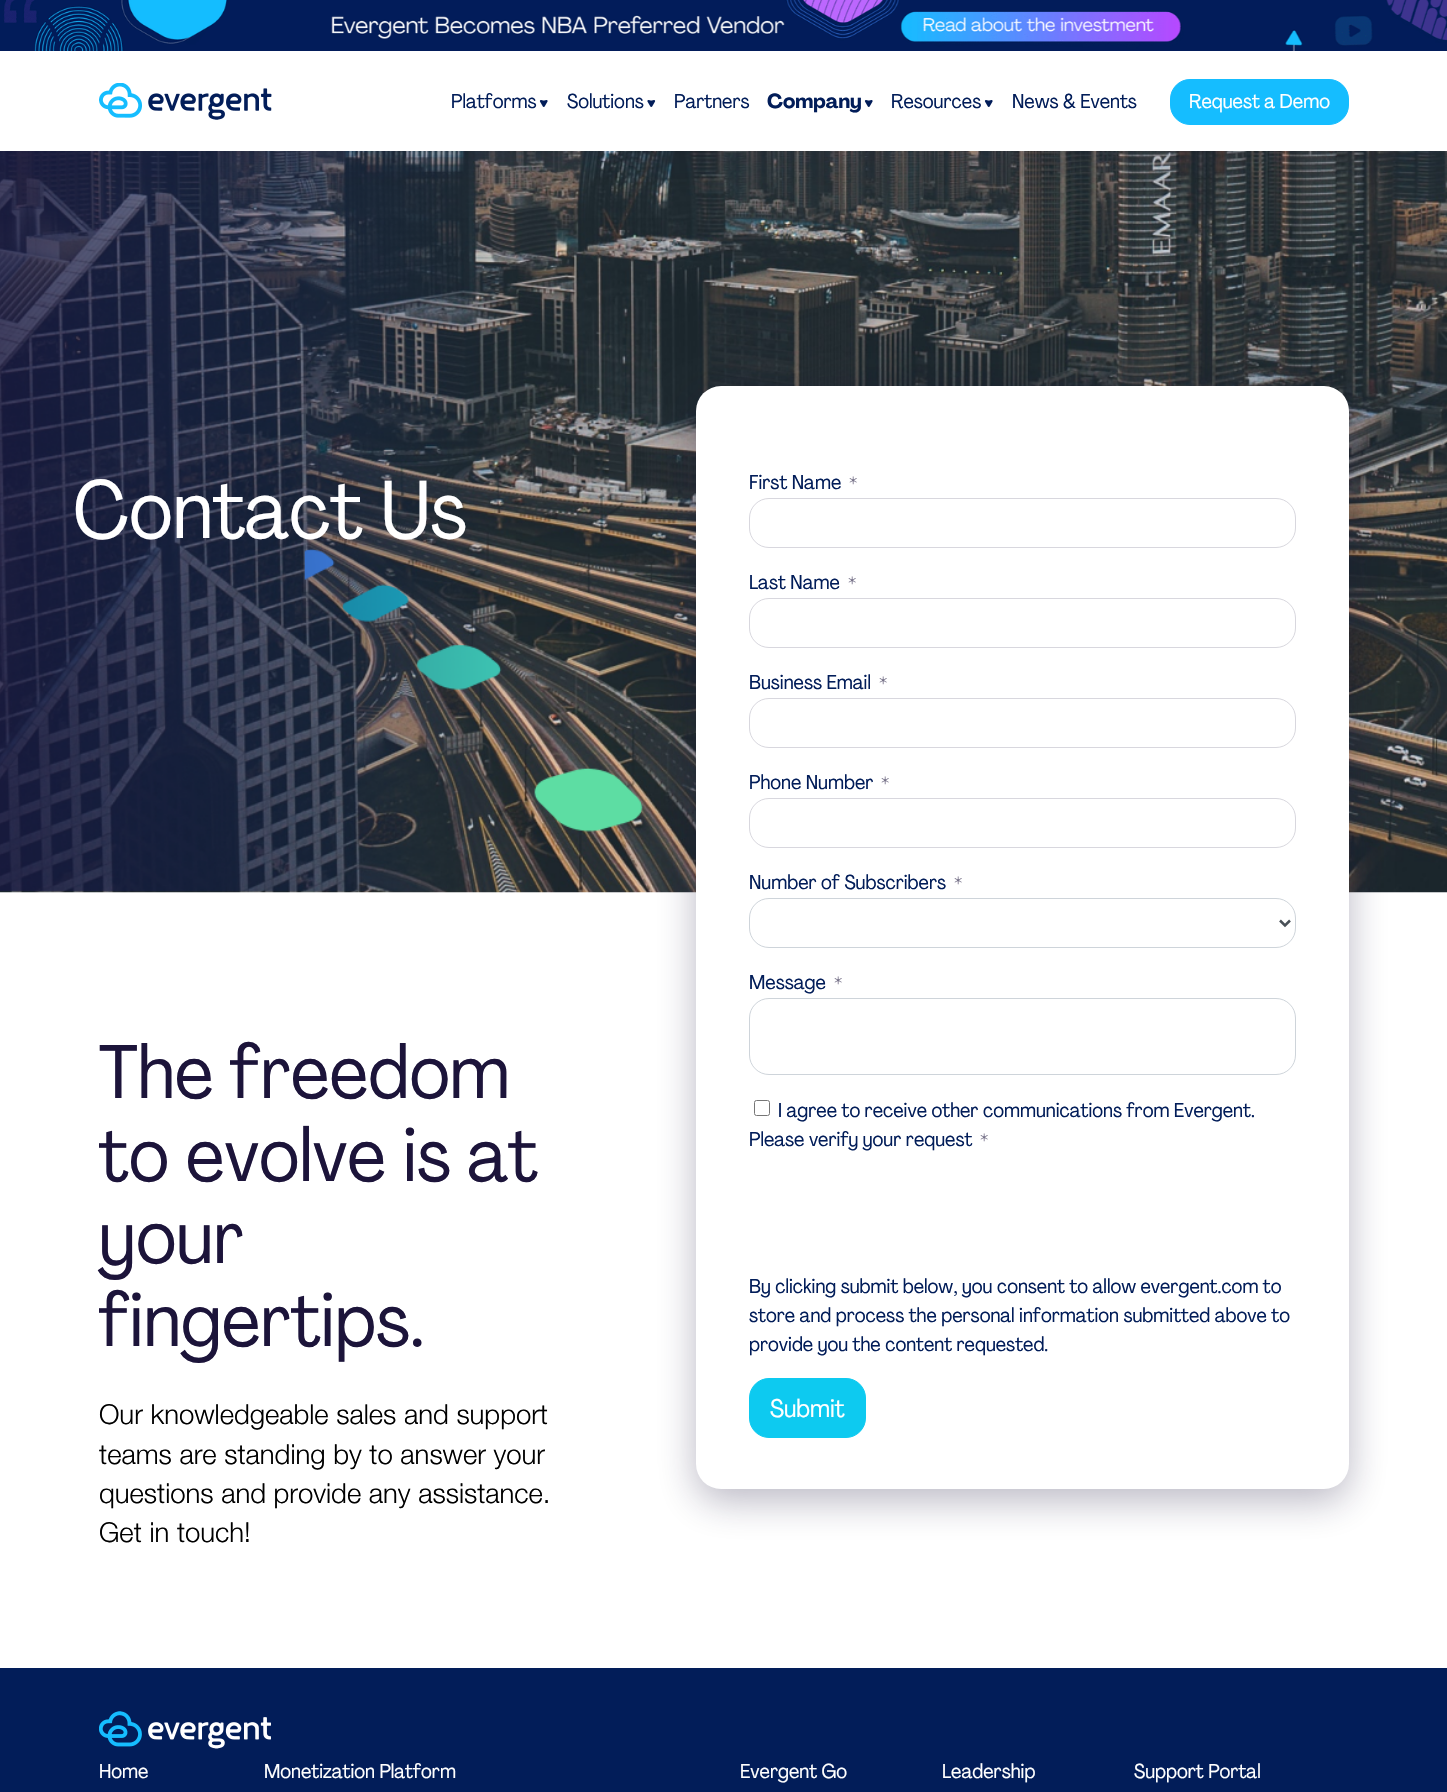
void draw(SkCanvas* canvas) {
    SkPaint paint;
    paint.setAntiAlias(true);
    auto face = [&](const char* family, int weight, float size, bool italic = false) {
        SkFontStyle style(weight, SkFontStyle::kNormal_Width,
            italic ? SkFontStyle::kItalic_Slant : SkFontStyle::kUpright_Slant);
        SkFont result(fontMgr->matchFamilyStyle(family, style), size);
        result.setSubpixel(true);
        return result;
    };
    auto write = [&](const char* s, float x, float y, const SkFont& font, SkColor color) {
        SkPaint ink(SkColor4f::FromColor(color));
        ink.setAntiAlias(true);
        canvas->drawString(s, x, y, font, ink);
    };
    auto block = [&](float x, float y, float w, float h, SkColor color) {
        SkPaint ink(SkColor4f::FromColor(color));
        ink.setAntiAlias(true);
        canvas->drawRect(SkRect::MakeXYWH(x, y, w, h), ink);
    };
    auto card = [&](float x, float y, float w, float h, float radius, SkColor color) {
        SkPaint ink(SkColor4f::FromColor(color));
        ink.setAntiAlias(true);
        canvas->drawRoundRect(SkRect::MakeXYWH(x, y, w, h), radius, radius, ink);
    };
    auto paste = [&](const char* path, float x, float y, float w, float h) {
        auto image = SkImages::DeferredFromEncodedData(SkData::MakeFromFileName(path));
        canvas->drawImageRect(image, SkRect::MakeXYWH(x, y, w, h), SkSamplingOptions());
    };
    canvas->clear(SK_ColorWHITE);
    paste("pic5.png", 0, 151, 1447, 742);
    paint.setColor(SkColorSetARGB(20, 34, 27, 74));
    paint.setMaskFilter(SkMaskFilter::MakeBlur(kNormal_SkBlurStyle, 27.5f));
    canvas->drawRect(SkRect::MakeXYWH(0, 0, 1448, 151), paint);
    paint.setMaskFilter(nullptr);
    block(0, 51, 1447, 100, SK_ColorWHITE);
    paste("pic1.png", 0, 0, 1447, 51);
    paste("pic2.png", 99, 83, 173, 37);
    auto kFont1 = face("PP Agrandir", 400, 20);
    write("Platforms", 451, 108, kFont1, SkColorSetRGB(2, 29, 89));
    paste("pic3.png", 539, 100, 9, 7);
    write("Solutions", 567, 108, kFont1, SkColorSetRGB(2, 29, 89));
    paste("pic4.png", 647, 100, 9, 7);
    write("Partners", 674, 108, kFont1, SkColorSetRGB(2, 29, 89));
    auto kFont2 = face("PP Agrandir", 700, 20);
    write("Company", 767, 108, kFont2, SkColorSetRGB(2, 29, 89));
    paste("pic3.png", 864, 100, 9, 7);
    write("Resources", 891, 108, kFont1, SkColorSetRGB(2, 29, 89));
    paste("pic3.png", 984, 100, 9, 7);
    write("News & Events", 1012, 108, kFont1, SkColorSetRGB(2, 29, 89));
    paint.setColor(SkColorSetRGB(21, 189, 255));
    canvas->drawRoundRect(SkRect::MakeXYWH(1170.5f, 79.5f, 178, 45), 19.5f, 19.5f, paint);
    paint.setStyle(SkPaint::kStroke_Style);
    paint.setStrokeWidth(1);
    canvas->drawRoundRect(SkRect::MakeXYWH(1170.5f, 79.5f, 178, 45), 19.5f, 19.5f, paint);
    write("Request a Demo", 1189, 108, kFont1, SK_ColorWHITE);
    auto kFont3 = face("PP Agrandir", 400, 75);
    write("The freedom", 99, 1098, kFont3, SkColorSetRGB(28, 20, 58));
    write("to evolve is at", 99, 1181, kFont3, SkColorSetRGB(28, 20, 58));
    write("your", 99, 1263, kFont3, SkColorSetRGB(28, 20, 58));
    write("fingertips.", 99, 1346, kFont3, SkColorSetRGB(28, 20, 58));
    auto kFont4 = face("Helvetica Neue", 300, 27.5f);
    write("Our knowledgeable sales and support", 99, 1424, kFont4, SK_ColorBLACK);
    write("teams are standing by to answer your", 99, 1464, kFont4, SK_ColorBLACK);
    write("questions and provide any assistance.", 99, 1503, kFont4, SK_ColorBLACK);
    write("Get in touch!", 99, 1542, kFont4, SK_ColorBLACK);
    paint.setStyle(SkPaint::kFill_Style);
    paint.setColor(SkColorSetARGB(77, 28, 20, 58));
    paint.setMaskFilter(SkMaskFilter::MakeBlur(kNormal_SkBlurStyle, 19));
    canvas->drawRoundRect(SkRect::MakeXYWH(696, 399, 653, 1102), 25, 25, paint);
    paint.setMaskFilter(nullptr);
    card(696, 386, 653, 1103, 25, SK_ColorWHITE);
    write("First Name", 749, 489, kFont1, SkColorSetRGB(2, 29, 89));
    auto kFont5 = face("PP Agrandir", 400, 18);
    write("*", 849, 489, kFont5, SkColorSetRGB(119, 114, 137));
    paint.setStyle(SkPaint::kStroke_Style);
    paint.setColor(SkColorSetRGB(216, 215, 222));
    canvas->drawRoundRect(SkRect::MakeXYWH(749.5f, 498.5f, 546, 49), 19.5f, 19.5f, paint);
    write("Last Name", 749, 589, kFont1, SkColorSetRGB(2, 29, 89));
    write("*", 848, 589, kFont5, SkColorSetRGB(119, 114, 137));
    canvas->drawRoundRect(SkRect::MakeXYWH(749.5f, 598.5f, 546, 49), 19.5f, 19.5f, paint);
    write("Business Email", 749, 689, kFont1, SkColorSetRGB(2, 29, 89));
    write("*", 879, 689, kFont5, SkColorSetRGB(119, 114, 137));
    canvas->drawRoundRect(SkRect::MakeXYWH(749.5f, 698.5f, 546, 49), 19.5f, 19.5f, paint);
    write("Phone Number", 749, 789, kFont1, SkColorSetRGB(2, 29, 89));
    write("*", 881, 789, kFont5, SkColorSetRGB(119, 114, 137));
    canvas->drawRoundRect(SkRect::MakeXYWH(749.5f, 798.5f, 546, 49), 19.5f, 19.5f, paint);
    write("Number of Subscribers", 749, 889, kFont1, SkColorSetRGB(2, 29, 89));
    write("*", 954, 889, kFont5, SkColorSetRGB(119, 114, 137));
    paint.setColor(SkColorSetRGB(206, 212, 218));
    canvas->drawRoundRect(SkRect::MakeXYWH(749.5f, 898.5f, 546, 49), 19.5f, 19.5f, paint);
    paint.setStrokeWidth(2.5f);
    paint.setColor(SkColorSetRGB(73, 80, 87));
    canvas->drawPath(SkPathBuilder().moveTo(1280, 920.5f).lineTo(1285, 925.5f).lineTo(1290, 920.5f).detach(), paint);
    write("Message", 749, 989, kFont1, SkColorSetRGB(2, 29, 89));
    write("*", 834, 989, kFont5, SkColorSetRGB(119, 114, 137));
    paint.setStrokeWidth(1);
    paint.setColor(SkColorSetRGB(206, 212, 218));
    canvas->drawRoundRect(SkRect::MakeXYWH(749.5f, 998.5f, 546, 76), 19.5f, 19.5f, paint);
    paint.setColor(SkColorSetRGB(118, 118, 118));
    canvas->drawRoundRect(SkRect::MakeXYWH(754.5f, 1100.5f, 15, 15), 2, 2, paint);
    write("I agree to receive other communications from Evergent.", 778, 1117, kFont1, SkColorSetRGB(2, 29, 89));
    write("Please verify your request", 749, 1146, kFont1, SkColorSetRGB(2, 29, 89));
    write("*", 980, 1146, kFont5, SkColorSetRGB(119, 114, 137));
    write("By clicking submit below, you consent to allow evergent.com to", 749, 1293, kFont1, SkColorSetRGB(2, 29, 89));
    write("store and process the personal information submitted above to", 749, 1322, kFont1, SkColorSetRGB(2, 29, 89));
    write("provide you the content requested.", 749, 1351, kFont1, SkColorSetRGB(2, 29, 89));
    paint.setStyle(SkPaint::kFill_Style);
    paint.setColor(SkColorSetRGB(13, 202, 240));
    canvas->drawRoundRect(SkRect::MakeXYWH(749.5f, 1378.5f, 116, 59), 19.5f, 19.5f, paint);
    paint.setStyle(SkPaint::kStroke_Style);
    canvas->drawRoundRect(SkRect::MakeXYWH(749.5f, 1378.5f, 116, 59), 19.5f, 19.5f, paint);
    auto kFont6 = face("PP Agrandir", 400, 25);
    write("Submit", 770, 1417, kFont6, SK_ColorWHITE);
    auto kFont7 = face("PP Agrandir", 400, 81.25f);
    write("Contact Us", 73, 538, kFont7, SK_ColorWHITE);
    block(0, 1668, 1447, 124, SkColorSetRGB(2, 29, 89));
    paste("pic6.png", 99, 1711, 172, 38);
    write("Home", 99, 1778, kFont1, SK_ColorWHITE);
    write("Monetization Platform", 264, 1778, kFont1, SK_ColorWHITE);
    write("Evergent Go", 740, 1778, kFont1, SK_ColorWHITE);
    write("Leadership", 942, 1778, kFont1, SK_ColorWHITE);
    write("Support Portal", 1134, 1778, kFont1, SK_ColorWHITE);
}
